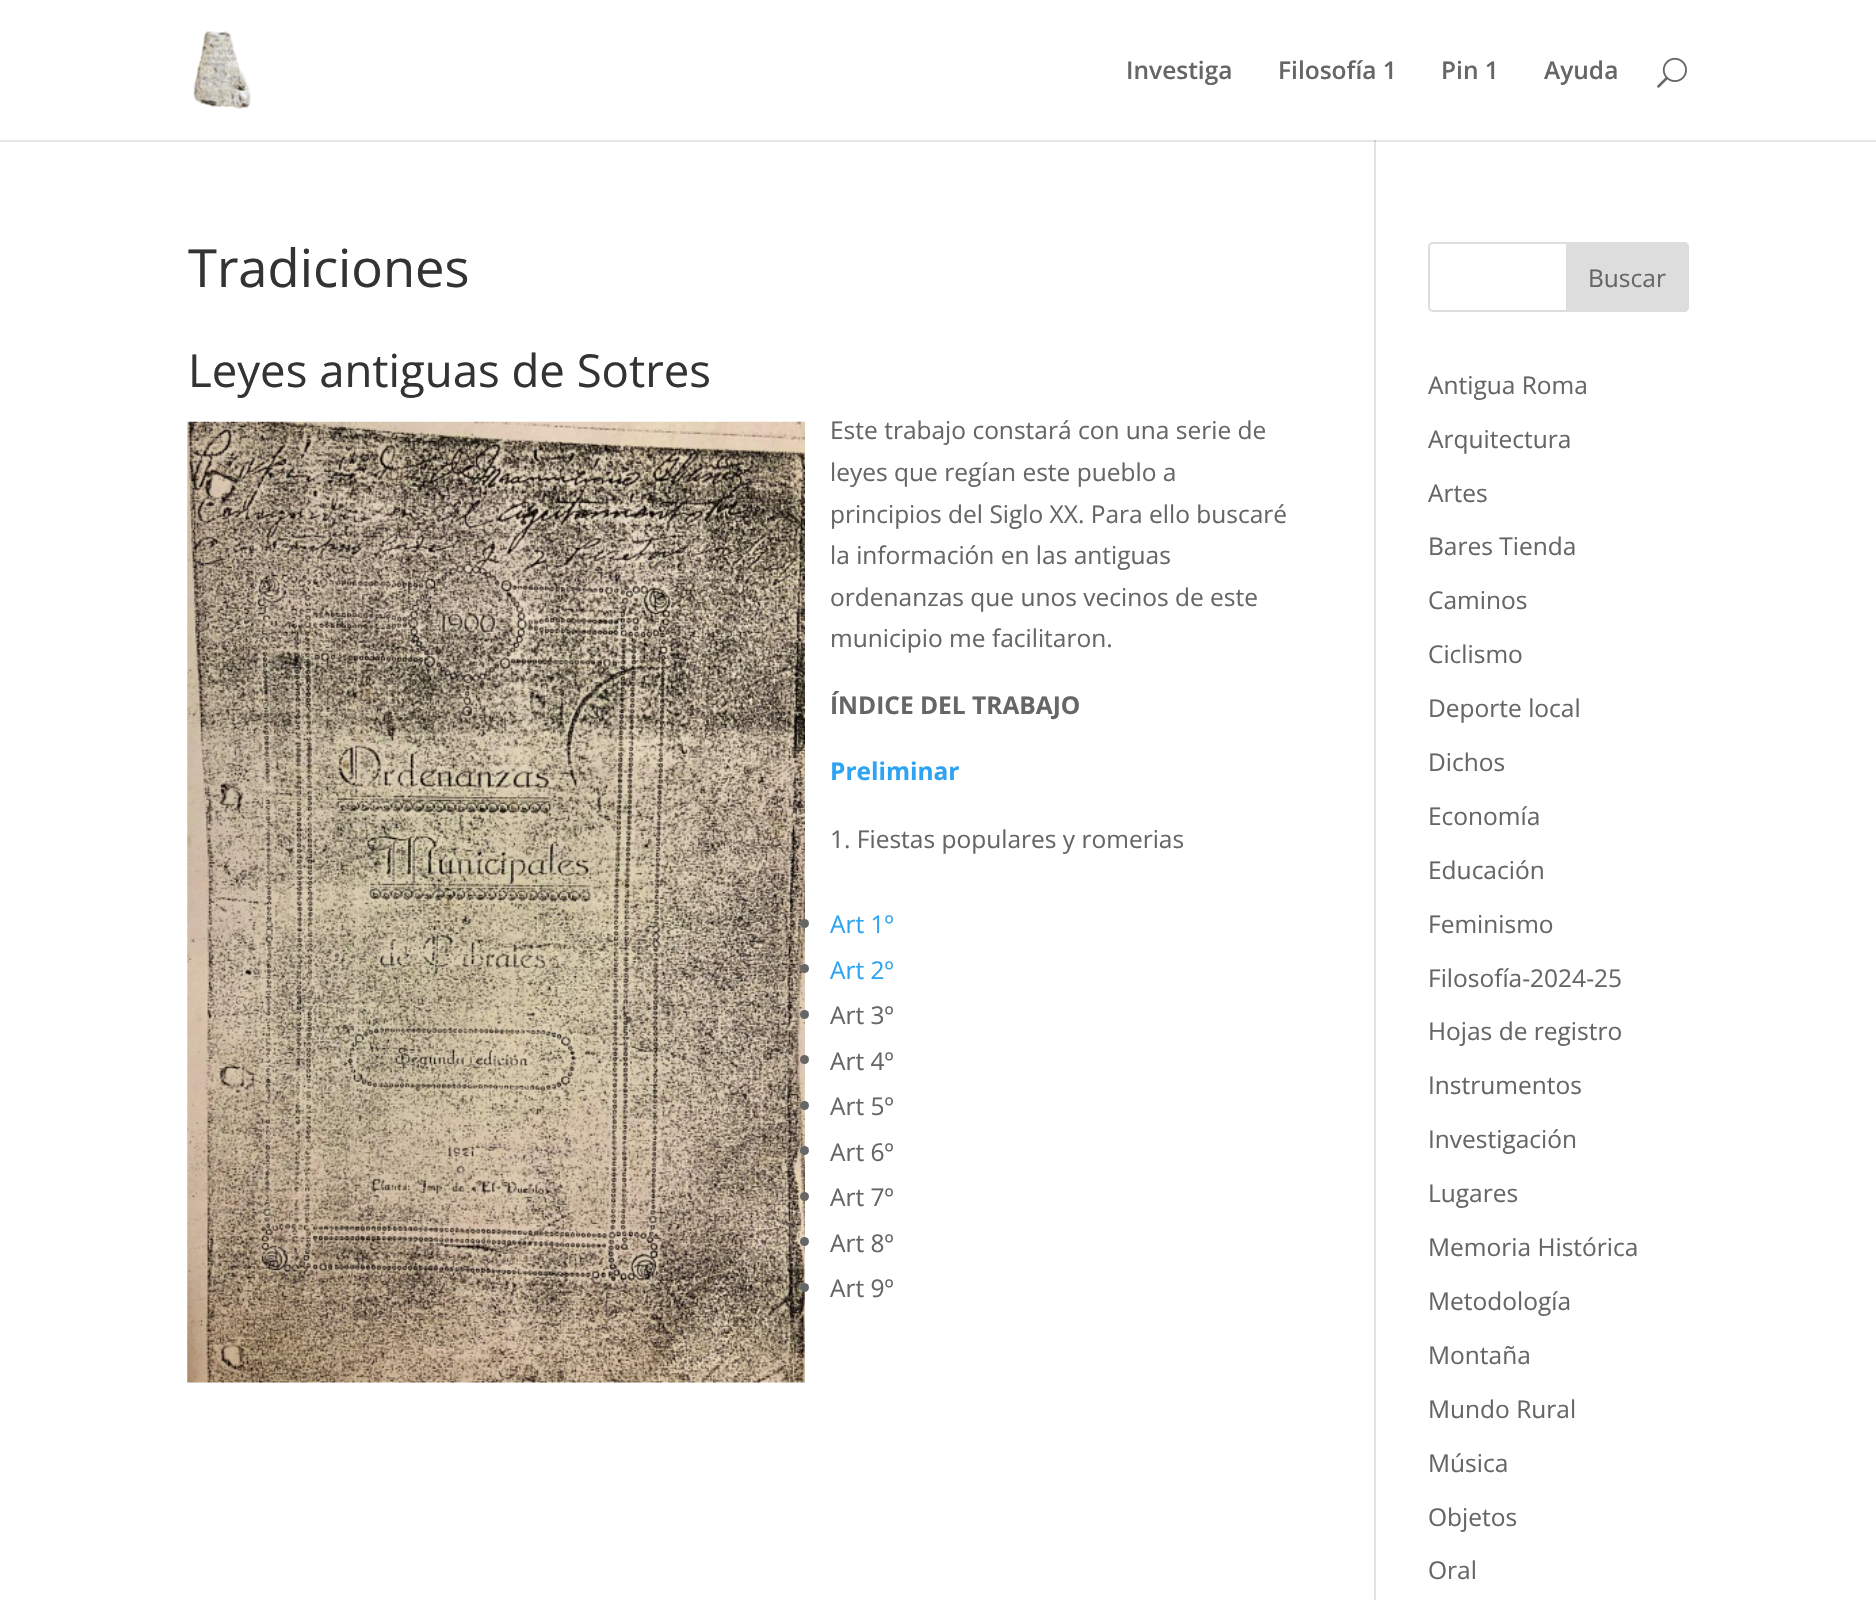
void draw(SkCanvas* canvas) {
    SkPaint paint;
    paint.setAntiAlias(true);
    auto face = [&](const char* family, int weight, float size, bool italic = false) {
        SkFontStyle style(weight, SkFontStyle::kNormal_Width,
            italic ? SkFontStyle::kItalic_Slant : SkFontStyle::kUpright_Slant);
        SkFont result(fontMgr->matchFamilyStyle(family, style), size);
        result.setSubpixel(true);
        return result;
    };
    auto write = [&](const char* s, float x, float y, const SkFont& font, SkColor color) {
        SkPaint ink(SkColor4f::FromColor(color));
        ink.setAntiAlias(true);
        canvas->drawString(s, x, y, font, ink);
    };
    auto block = [&](float x, float y, float w, float h, SkColor color) {
        SkPaint ink(SkColor4f::FromColor(color));
        ink.setAntiAlias(true);
        canvas->drawRect(SkRect::MakeXYWH(x, y, w, h), ink);
    };
    auto paste = [&](const char* path, float x, float y, float w, float h) {
        auto image = SkImages::DeferredFromEncodedData(SkData::MakeFromFileName(path));
        canvas->drawImageRect(image, SkRect::MakeXYWH(x, y, w, h), SkSamplingOptions());
    };
    canvas->clear(SK_ColorWHITE);
    block(0, 140, 1876, 2, SkColorSetRGB(230, 230, 230));
    paste("pic1.png", 193, 31, 58, 78);
    auto kFont1 = face("Open Sans", 600, 24.5f);
    write("Investiga", 1126, 79, kFont1, SkColorSetRGB(102, 102, 102));
    write("Filosofía 1", 1278, 79, kFont1, SkColorSetRGB(102, 102, 102));
    write("Pin 1", 1441, 79, kFont1, SkColorSetRGB(102, 102, 102));
    write("Ayuda", 1544, 79, kFont1, SkColorSetRGB(102, 102, 102));
    paste("pic2.png", 1657, 57, 30, 31);
    block(1374, 140, 2, 1460, SkColorSetRGB(226, 226, 226));
    block(1374, 140, 2, 2, SkColorSetRGB(203, 203, 203));
    auto kFont2 = face("Open Sans", 400, 52.5f);
    write("Tradiciones", 188, 287, kFont2, SkColorSetRGB(51, 51, 51));
    auto kFont3 = face("Open Sans", 400, 45.5f);
    write("Leyes antiguas de Sotres", 188, 387, kFont3, SkColorSetRGB(51, 51, 51));
    paste("pic3.png", 187, 421, 618, 962);
    auto kFont4 = face("Open Sans", 400, 24.5f);
    write("Este trabajo constará con una serie de", 830, 439, kFont4, SkColorSetRGB(102, 102, 102));
    write("leyes que regían este pueblo a", 830, 481, kFont4, SkColorSetRGB(102, 102, 102));
    write("principios del Siglo XX. Para ello buscaré", 830, 523, kFont4, SkColorSetRGB(102, 102, 102));
    write("la información en las antiguas", 830, 564, kFont4, SkColorSetRGB(102, 102, 102));
    write("ordenanzas que unos vecinos de este", 830, 606, kFont4, SkColorSetRGB(102, 102, 102));
    write("municipio me facilitaron.", 830, 647, kFont4, SkColorSetRGB(102, 102, 102));
    auto kFont5 = face("Open Sans", 700, 24.5f);
    write("ÍNDICE DEL TRABAJO", 830, 714, kFont5, SkColorSetRGB(102, 102, 102));
    write("Preliminar", 830, 780, kFont5, SkColorSetRGB(46, 163, 242));
    write("1. Fiestas populares y romerias", 830, 848, kFont4, SkColorSetRGB(102, 102, 102));
    paint.setColor(SkColorSetRGB(102, 102, 102));
    canvas->drawCircle(804.5f, 923.5f, 4.5f, paint);
    write("Art 1º", 830, 933, kFont4, SkColorSetRGB(46, 163, 242));
    canvas->drawCircle(804.5f, 968.5f, 4.5f, paint);
    write("Art 2º", 830, 979, kFont4, SkColorSetRGB(46, 163, 242));
    canvas->drawCircle(804.5f, 1014.5f, 4.5f, paint);
    write("Art 3º", 830, 1024, kFont4, SkColorSetRGB(102, 102, 102));
    canvas->drawCircle(804.5f, 1059.5f, 4.5f, paint);
    write("Art 4º", 830, 1070, kFont4, SkColorSetRGB(102, 102, 102));
    canvas->drawCircle(804.5f, 1105.5f, 4.5f, paint);
    write("Art 5º", 830, 1115, kFont4, SkColorSetRGB(102, 102, 102));
    canvas->drawCircle(804.5f, 1150.5f, 4.5f, paint);
    write("Art 6º", 830, 1161, kFont4, SkColorSetRGB(102, 102, 102));
    canvas->drawCircle(804.5f, 1196.5f, 4.5f, paint);
    write("Art 7º", 830, 1206, kFont4, SkColorSetRGB(102, 102, 102));
    canvas->drawCircle(804.5f, 1241.5f, 4.5f, paint);
    write("Art 8º", 830, 1252, kFont4, SkColorSetRGB(102, 102, 102));
    canvas->drawCircle(804.5f, 1287.5f, 4.5f, paint);
    write("Art 9º", 830, 1297, kFont4, SkColorSetRGB(102, 102, 102));
    paint.setStyle(SkPaint::kStroke_Style);
    paint.setStrokeWidth(2);
    paint.setColor(SkColorSetRGB(221, 221, 221));
    canvas->drawRoundRect(SkRect::MakeXYWH(1429, 243, 259, 68), 4, 4, paint);
    paint.setStyle(SkPaint::kFill_Style);
    canvas->drawPath(SkPathBuilder().moveTo(1567, 243).lineTo(1684, 243).cubicTo(1686, 243, 1688, 245, 1688, 247).lineTo(1688, 307).cubicTo(1688, 309, 1686, 311, 1684, 311).lineTo(1567, 311).close().detach(), paint);
    paint.setStyle(SkPaint::kStroke_Style);
    canvas->drawPath(SkPathBuilder().moveTo(1567, 243).lineTo(1684, 243).cubicTo(1686, 243, 1688, 245, 1688, 247).lineTo(1688, 307).cubicTo(1688, 309, 1686, 311, 1684, 311).lineTo(1567, 311).close().detach(), paint);
    write("Buscar", 1588, 287, kFont4, SkColorSetRGB(102, 102, 102));
    write("Antigua Roma", 1428, 394, kFont4, SkColorSetRGB(102, 102, 102));
    write("Arquitectura", 1428, 448, kFont4, SkColorSetRGB(102, 102, 102));
    write("Artes", 1428, 502, kFont4, SkColorSetRGB(102, 102, 102));
    write("Bares Tienda", 1428, 555, kFont4, SkColorSetRGB(102, 102, 102));
    write("Caminos", 1428, 609, kFont4, SkColorSetRGB(102, 102, 102));
    write("Ciclismo", 1428, 663, kFont4, SkColorSetRGB(102, 102, 102));
    write("Deporte local", 1428, 717, kFont4, SkColorSetRGB(102, 102, 102));
    write("Dichos", 1428, 771, kFont4, SkColorSetRGB(102, 102, 102));
    write("Economía", 1428, 825, kFont4, SkColorSetRGB(102, 102, 102));
    write("Educación", 1428, 879, kFont4, SkColorSetRGB(102, 102, 102));
    write("Feminismo", 1428, 933, kFont4, SkColorSetRGB(102, 102, 102));
    write("Filosofía-2024-25", 1428, 987, kFont4, SkColorSetRGB(102, 102, 102));
    write("Hojas de registro", 1428, 1040, kFont4, SkColorSetRGB(102, 102, 102));
    write("Instrumentos", 1428, 1094, kFont4, SkColorSetRGB(102, 102, 102));
    write("Investigación", 1428, 1148, kFont4, SkColorSetRGB(102, 102, 102));
    write("Lugares", 1428, 1202, kFont4, SkColorSetRGB(102, 102, 102));
    write("Memoria Histórica", 1428, 1256, kFont4, SkColorSetRGB(102, 102, 102));
    write("Metodología", 1428, 1310, kFont4, SkColorSetRGB(102, 102, 102));
    write("Montaña", 1428, 1364, kFont4, SkColorSetRGB(102, 102, 102));
    write("Mundo Rural", 1428, 1418, kFont4, SkColorSetRGB(102, 102, 102));
    write("Música", 1428, 1472, kFont4, SkColorSetRGB(102, 102, 102));
    write("Objetos", 1428, 1526, kFont4, SkColorSetRGB(102, 102, 102));
    write("Oral", 1428, 1579, kFont4, SkColorSetRGB(102, 102, 102));
}
